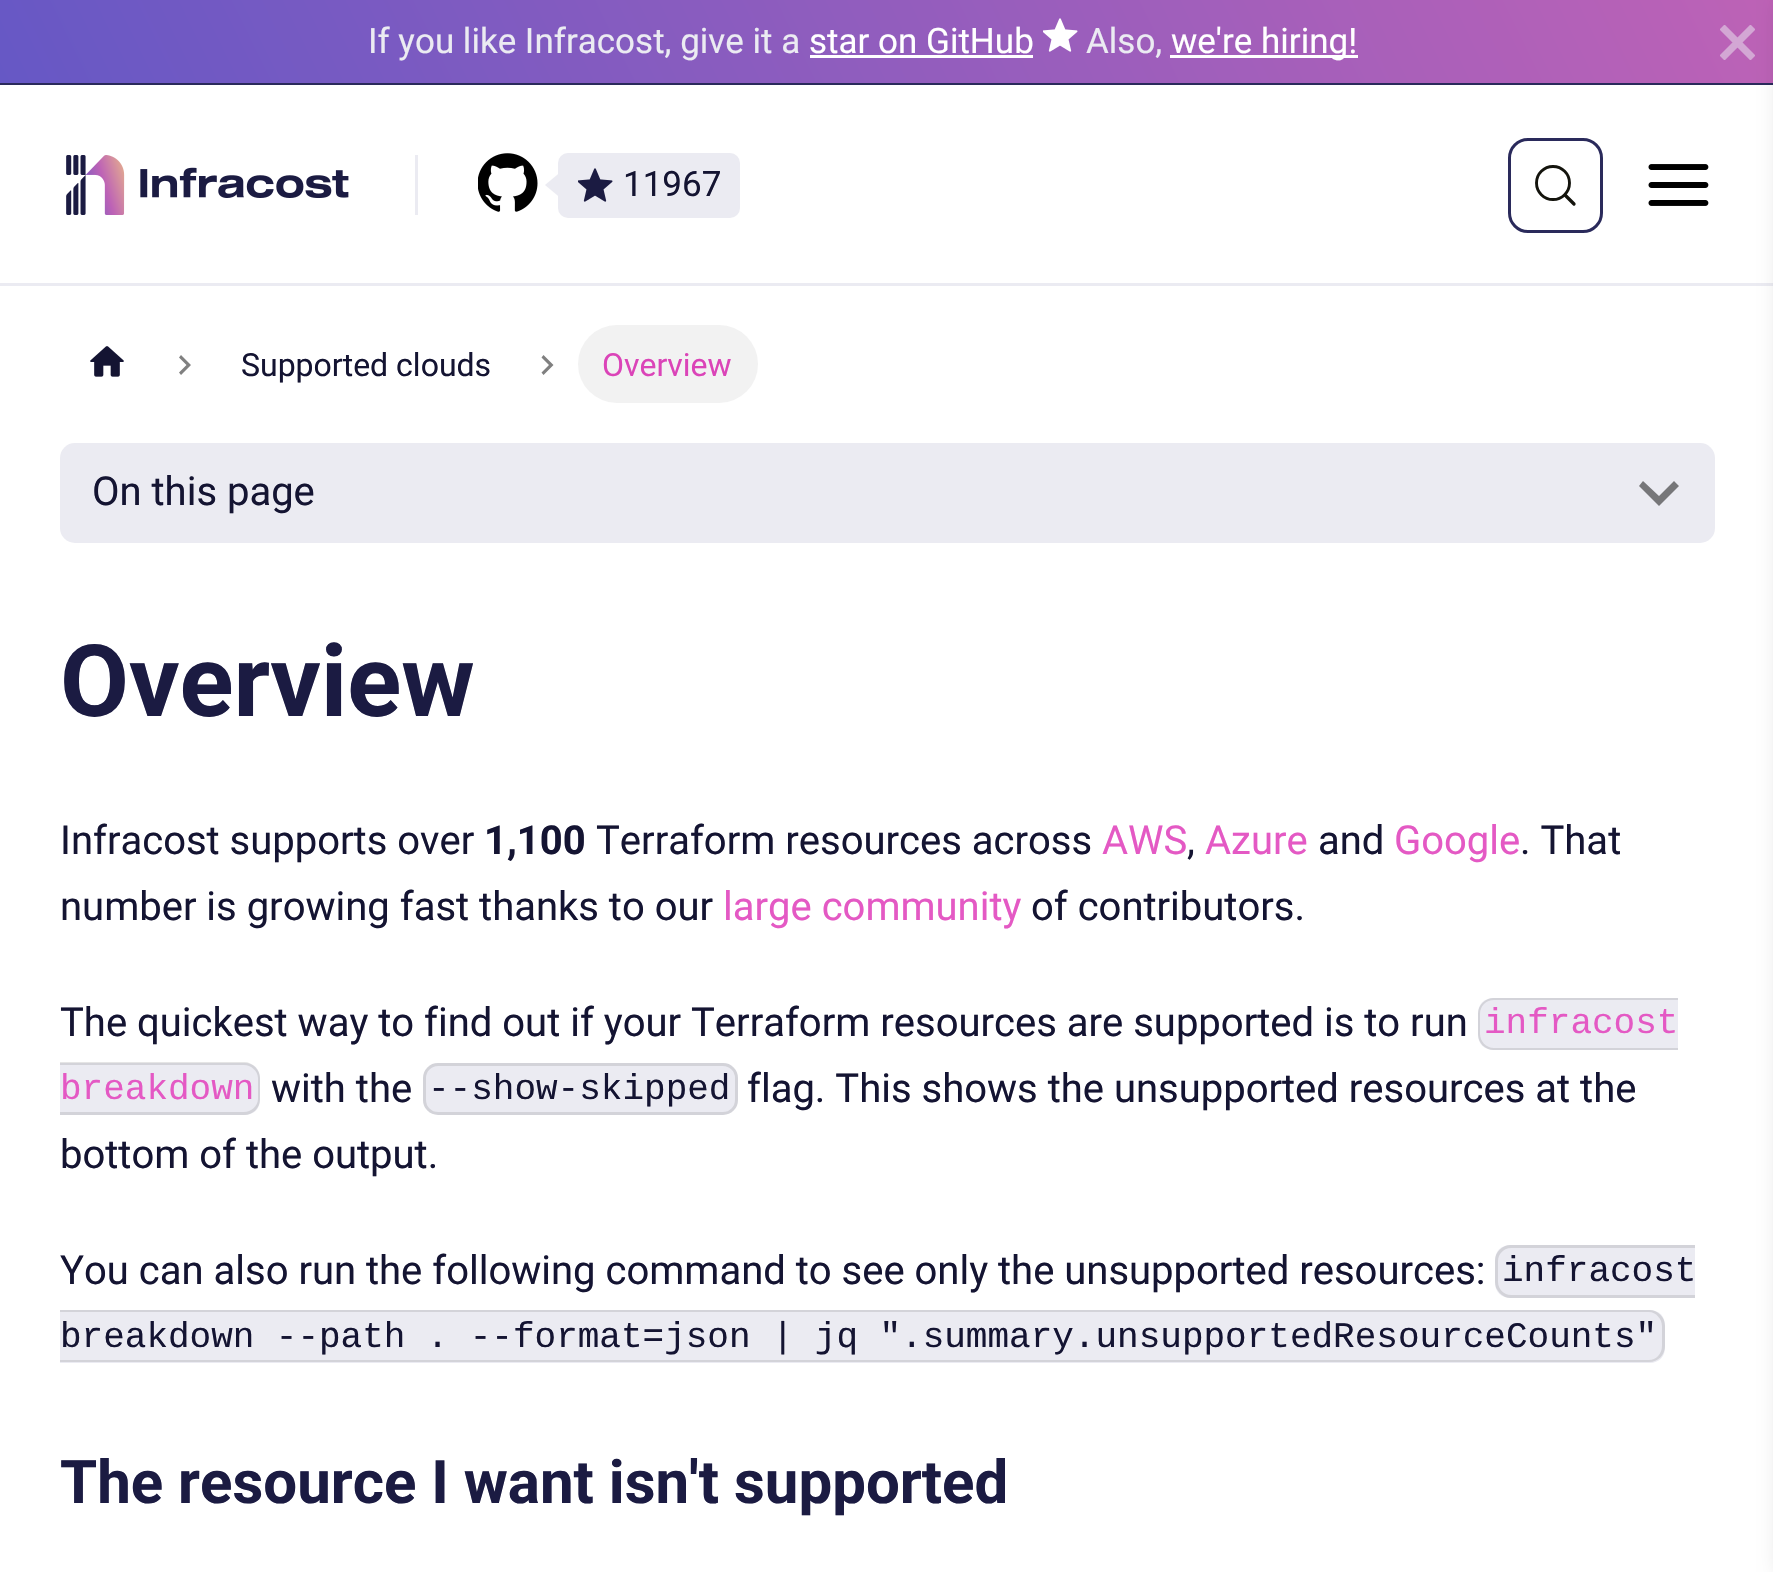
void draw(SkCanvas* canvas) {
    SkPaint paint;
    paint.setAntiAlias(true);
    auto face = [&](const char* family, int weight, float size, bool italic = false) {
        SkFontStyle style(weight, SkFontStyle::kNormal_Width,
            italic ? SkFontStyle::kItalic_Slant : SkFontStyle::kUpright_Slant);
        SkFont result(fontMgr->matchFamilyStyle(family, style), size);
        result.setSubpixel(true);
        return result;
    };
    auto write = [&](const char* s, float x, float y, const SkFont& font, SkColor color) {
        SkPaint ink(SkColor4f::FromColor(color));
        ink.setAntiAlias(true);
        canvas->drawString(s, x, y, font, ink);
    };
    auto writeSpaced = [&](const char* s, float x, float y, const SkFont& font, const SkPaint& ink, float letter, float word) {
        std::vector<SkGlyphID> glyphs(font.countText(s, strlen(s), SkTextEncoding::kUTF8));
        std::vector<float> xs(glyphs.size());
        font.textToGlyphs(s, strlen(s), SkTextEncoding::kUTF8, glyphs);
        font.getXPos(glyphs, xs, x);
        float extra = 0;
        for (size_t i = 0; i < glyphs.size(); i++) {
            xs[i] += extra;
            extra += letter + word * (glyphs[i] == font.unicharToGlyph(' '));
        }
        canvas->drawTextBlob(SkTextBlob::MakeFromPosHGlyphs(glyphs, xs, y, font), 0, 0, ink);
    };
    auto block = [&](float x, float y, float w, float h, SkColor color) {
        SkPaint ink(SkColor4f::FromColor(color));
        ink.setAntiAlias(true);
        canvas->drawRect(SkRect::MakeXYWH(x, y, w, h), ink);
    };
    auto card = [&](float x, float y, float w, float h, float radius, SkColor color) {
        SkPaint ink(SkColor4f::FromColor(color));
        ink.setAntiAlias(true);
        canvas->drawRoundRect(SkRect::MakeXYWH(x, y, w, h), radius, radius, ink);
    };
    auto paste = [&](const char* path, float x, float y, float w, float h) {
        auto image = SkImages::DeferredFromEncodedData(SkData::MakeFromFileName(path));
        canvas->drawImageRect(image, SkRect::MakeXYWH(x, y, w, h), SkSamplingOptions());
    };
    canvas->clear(SK_ColorWHITE);
    {
        const SkColor colors[] = {SkColorSetRGB(189, 98, 182), SkColorSetRGB(102, 88, 197)};
        const float stops[] = {0, 1};
        const SkPoint ends[] = {{1620, -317}, {155, 400}};
        paint.setShader(SkGradientShader::MakeLinear(ends, colors, stops, 2, SkTileMode::kClamp));
        paint.setAlpha(255);
    }
    canvas->drawRect(SkRect::MakeXYWH(0, 0, 1773, 83), paint);
    block(0, 83, 1773, 2, SkColorSetRGB(42, 42, 91));
    auto kFont1 = face("Roboto", 400, 35);
    write("If you like Infracost, give it a", 368, 53, kFont1, SkColorSetRGB(235, 235, 242));
    write("star on GitHub", 809, 53, kFont1, SK_ColorWHITE);
    block(810, 55, 223, 3, SK_ColorWHITE);
    paste("pic1.png", 1043, 18, 35, 34);
    write("Also,", 1086, 53, kFont1, SkColorSetRGB(235, 235, 242));
    block(1170, 55, 188, 3, SK_ColorWHITE);
    write("we're hiring!", 1171, 53, kFont1, SK_ColorWHITE);
    canvas->save();
    canvas->clipRect(SkRect::MakeXYWH(1720, 25, 35, 35));
    paint.setStyle(SkPaint::kStroke_Style);
    paint.setStrokeWidth(7.2f);
    paint.setShader(nullptr);
    paint.setColor(SkColorSetRGB(211, 167, 212));
    canvas->drawPath(SkPathBuilder().moveTo(1722, 27).lineTo(1753, 58).moveTo(1753, 27).lineTo(1722, 58).detach(), paint);
    canvas->restore();
    block(0, 283, 1773, 3, SkColorSetRGB(235, 235, 242));
    block(415, 155, 3, 60, SkColorSetRGB(235, 235, 242));
    paste("pic2.png", 66, 155, 283, 60);
    paste("pic3.png", 478, 153, 60, 59);
    card(558, 153, 182, 65, 10, SkColorSetRGB(235, 235, 242));
    paint.setStyle(SkPaint::kFill_Style);
    paint.setColor(SkColorSetRGB(235, 235, 242));
    canvas->drawPath(SkPathBuilder().moveTo(560, 172.5f).lineTo(560, 197.5f).lineTo(545, 185).close().detach(), paint);
    paste("pic4.png", 578, 168, 35, 34);
    write("11967", 623, 196, kFont1, SkColorSetRGB(20, 20, 50));
    paint.setStyle(SkPaint::kStroke_Style);
    paint.setStrokeWidth(3);
    paint.setColor(SkColorSetRGB(42, 42, 91));
    canvas->drawRoundRect(SkRect::MakeXYWH(1509.5f, 139.5f, 92, 92), 18.5f, 18.5f, paint);
    paint.setStrokeWidth(2.9f);
    paint.setColor(SkColorSetRGB(20, 20, 13));
    canvas->drawCircle(1553, 183, 16.5f, paint);
    paint.setStrokeWidth(3.3f);
    paint.setStrokeCap(SkPaint::kRound_Cap);
    paint.setStrokeJoin(SkPaint::kRound_Join);
    canvas->drawPath(SkPathBuilder().moveTo(1574, 204).lineTo(1565, 195).detach(), paint);
    paste("pic5.png", 1648, 164, 61, 42);
    paint.setStyle(SkPaint::kFill_Style);
    paint.setColor(SkColorSetARGB(64, 0, 0, 0));
    paint.setMaskFilter(SkMaskFilter::MakeBlur(kNormal_SkBlurStyle, 12.5f));
    canvas->drawRect(SkRect::MakeXYWH(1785, 0, 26, 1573), paint);
    paint.setMaskFilter(nullptr);
    paste("pic6.png", 90, 346, 34, 31);
    paint.setColor(SkColorSetRGB(128, 128, 128));
    canvas->drawPath(SkPathBuilder().moveTo(181, 355).lineTo(179, 357.5f).lineTo(186.5f, 365).lineTo(179, 372.5f).lineTo(181, 375).lineTo(191, 365).close().detach(), paint);
    auto kFont2 = face("Roboto", 400, 32);
    write("Supported clouds", 241, 376, kFont2, SkColorSetRGB(20, 20, 50));
    canvas->drawPath(SkPathBuilder().moveTo(543.5f, 355).lineTo(541.5f, 357.5f).lineTo(549, 365).lineTo(541.5f, 372.5f).lineTo(543.5f, 375).lineTo(553.5f, 365).close().detach(), paint);
    card(578, 325, 180, 78, 39, SkColorSetRGB(242, 242, 242));
    write("Overview", 602, 376, kFont2, SkColorSetRGB(219, 68, 184));
    card(60, 443, 1655, 100, 15, SkColorSetRGB(235, 235, 242));
    auto kFont3 = face("Roboto", 400, 40);
    write("On this page", 92, 505, kFont3, SkColorSetRGB(20, 20, 50));
    paint.setColor(SkColorSetRGB(118, 118, 121));
    canvas->drawPath(SkPathBuilder().moveTo(1674, 481).lineTo(1659, 496).lineTo(1643, 481).lineTo(1639, 486).lineTo(1659, 506).lineTo(1679, 486).close().detach(), paint);
    auto kFont4 = face("Roboto", 700, 100);
    write("Overview", 60, 716, kFont4, SkColorSetRGB(27, 27, 66));
    write("Infracost supports over", 60, 854, kFont3, SkColorSetRGB(20, 20, 50));
    auto kFont5 = face("Roboto", 700, 40);
    write("1,100", 484, 854, kFont5, SkColorSetRGB(20, 20, 50));
    write("Terraform resources across", 596, 854, kFont3, SkColorSetRGB(20, 20, 50));
    write("AWS", 1102, 854, kFont3, SkColorSetRGB(228, 89, 196));
    write(",", 1187, 854, kFont3, SkColorSetRGB(20, 20, 50));
    write("Azure", 1205, 854, kFont3, SkColorSetRGB(228, 89, 196));
    write("and", 1318, 854, kFont3, SkColorSetRGB(20, 20, 50));
    write("Google", 1394, 854, kFont3, SkColorSetRGB(228, 89, 196));
    write(". That", 1520, 854, kFont3, SkColorSetRGB(20, 20, 50));
    write("number is growing fast thanks to our", 60, 920, kFont3, SkColorSetRGB(20, 20, 50));
    write("large community", 723, 920, kFont3, SkColorSetRGB(228, 89, 196));
    write("of contributors.", 1031, 920, kFont3, SkColorSetRGB(20, 20, 50));
    write("The quickest way to find out if your Terraform resources are supported is to run", 60, 1036, kFont3, SkColorSetRGB(20, 20, 50));
    paint.setColor(SkColorSetRGB(235, 235, 242));
    canvas->drawPath(SkPathBuilder().moveTo(1493, 998).lineTo(1678, 998).lineTo(1678, 1050).lineTo(1493, 1050).cubicTo(1484.5f, 1050, 1478, 1043.5f, 1478, 1035).lineTo(1478, 1013).cubicTo(1478, 1004.5f, 1484.5f, 998, 1493, 998).close().detach(), paint);
    paint.setColor(SkColorSetARGB(26, 0, 0, 0));
    canvas->drawPath(SkPathBuilder(SkPathFillType::kEvenOdd).moveTo(1494, 998).lineTo(1678, 998).lineTo(1678, 1050).lineTo(1494, 1050).cubicTo(1485, 1050, 1478, 1043, 1478, 1034).lineTo(1478, 1014).cubicTo(1478, 1005, 1485, 998, 1494, 998).close().moveTo(1494, 1000).lineTo(1678, 1000).lineTo(1678, 1048).lineTo(1494, 1048).cubicTo(1486, 1048, 1480, 1041, 1480, 1034).lineTo(1480, 1014).cubicTo(1480, 1006, 1486, 1000, 1494, 1000).close().detach(), paint);
    auto kFont6 = face("Liberation Mono", 400, 36);
    write("infracost", 1484, 1033, kFont6, SkColorSetRGB(228, 89, 196));
    paint.setColor(SkColorSetRGB(235, 235, 242));
    canvas->drawPath(SkPathBuilder().moveTo(60, 1063).lineTo(245, 1063).cubicTo(253.5f, 1063, 260, 1069.5f, 260, 1078).lineTo(260, 1100).cubicTo(260, 1108.5f, 253.5f, 1115, 245, 1115).lineTo(60, 1115).close().detach(), paint);
    paint.setColor(SkColorSetARGB(26, 0, 0, 0));
    canvas->drawPath(SkPathBuilder(SkPathFillType::kEvenOdd).moveTo(60, 1062).lineTo(244, 1062).cubicTo(253, 1062, 260, 1070, 260, 1078).lineTo(260, 1099).cubicTo(260, 1108, 253, 1115, 244, 1115).lineTo(60, 1115).close().moveTo(60, 1065).lineTo(244, 1065).cubicTo(251, 1065, 258, 1071, 258, 1078).lineTo(258, 1099).cubicTo(258, 1106, 251, 1112, 244, 1112).lineTo(60, 1112).close().detach(), paint);
    write("breakdown", 60, 1099, kFont6, SkColorSetRGB(228, 89, 196));
    write("with the", 271, 1102, kFont3, SkColorSetRGB(20, 20, 50));
    card(423, 1063, 315, 52, 15, SkColorSetRGB(235, 235, 242));
    paint.setStyle(SkPaint::kStroke_Style);
    paint.setStrokeWidth(3);
    paint.setStrokeCap(SkPaint::kButt_Cap);
    paint.setStrokeJoin(SkPaint::kMiter_Join);
    canvas->drawRoundRect(SkRect::MakeXYWH(424.5f, 1064.5f, 312, 49), 13.5f, 13.5f, paint);
    write("--show-skipped", 428, 1099, kFont6, SkColorSetRGB(20, 20, 50));
    write("flag. This shows the unsupported resources at the", 747, 1102, kFont3, SkColorSetRGB(20, 20, 50));
    write("bottom of the output.", 60, 1168, kFont3, SkColorSetRGB(20, 20, 50));
    write("You can also run the following command to see only the unsupported resources:", 60, 1284, kFont3, SkColorSetRGB(20, 20, 50));
    paint.setStyle(SkPaint::kFill_Style);
    paint.setColor(SkColorSetRGB(235, 235, 242));
    canvas->drawPath(SkPathBuilder().moveTo(1510, 1245).lineTo(1695, 1245).lineTo(1695, 1298).lineTo(1510, 1298).cubicTo(1501.5f, 1298, 1495, 1291.5f, 1495, 1283).lineTo(1495, 1260).cubicTo(1495, 1251.5f, 1501.5f, 1245, 1510, 1245).close().detach(), paint);
    paint.setColor(SkColorSetARGB(26, 0, 0, 0));
    canvas->drawPath(SkPathBuilder(SkPathFillType::kEvenOdd).moveTo(1511, 1245).lineTo(1695, 1245).lineTo(1695, 1298).lineTo(1511, 1298).cubicTo(1502, 1298, 1495, 1290, 1495, 1282).lineTo(1495, 1261).cubicTo(1495, 1252, 1502, 1245, 1511, 1245).close().moveTo(1511, 1248).lineTo(1695, 1248).lineTo(1695, 1295).lineTo(1511, 1295).cubicTo(1504, 1295, 1498, 1289, 1498, 1282).lineTo(1498, 1261).cubicTo(1498, 1254, 1504, 1248, 1511, 1248).close().detach(), paint);
    write("infracost", 1502, 1281, kFont6, SkColorSetRGB(20, 20, 50));
    paint.setColor(SkColorSetRGB(235, 235, 242));
    canvas->drawPath(SkPathBuilder().moveTo(60, 1310).lineTo(1650, 1310).cubicTo(1658.5f, 1310, 1665, 1316.5f, 1665, 1325).lineTo(1665, 1348).cubicTo(1665, 1356.5f, 1658.5f, 1363, 1650, 1363).lineTo(60, 1363).close().detach(), paint);
    paint.setColor(SkColorSetARGB(26, 0, 0, 0));
    canvas->drawPath(SkPathBuilder(SkPathFillType::kEvenOdd).moveTo(60, 1310).lineTo(1649, 1310).cubicTo(1658, 1310, 1665, 1317, 1665, 1326).lineTo(1665, 1346).cubicTo(1665, 1355, 1658, 1362, 1649, 1362).lineTo(60, 1362).close().moveTo(60, 1312).lineTo(1649, 1312).cubicTo(1656, 1312, 1662, 1319, 1662, 1326).lineTo(1662, 1346).cubicTo(1662, 1354, 1656, 1360, 1649, 1360).lineTo(60, 1360).close().detach(), paint);
    paint.setColor(SkColorSetRGB(20, 20, 50));
    writeSpaced("breakdown --path . --format=json | jq \".summary.unsupportedResourceCounts\"", 60, 1347, kFont6, paint, 0, -0.25f);
    auto kFont7 = face("Roboto", 700, 60);
    write("The resource I want isn't supported", 60, 1503, kFont7, SkColorSetRGB(27, 27, 66));
}
